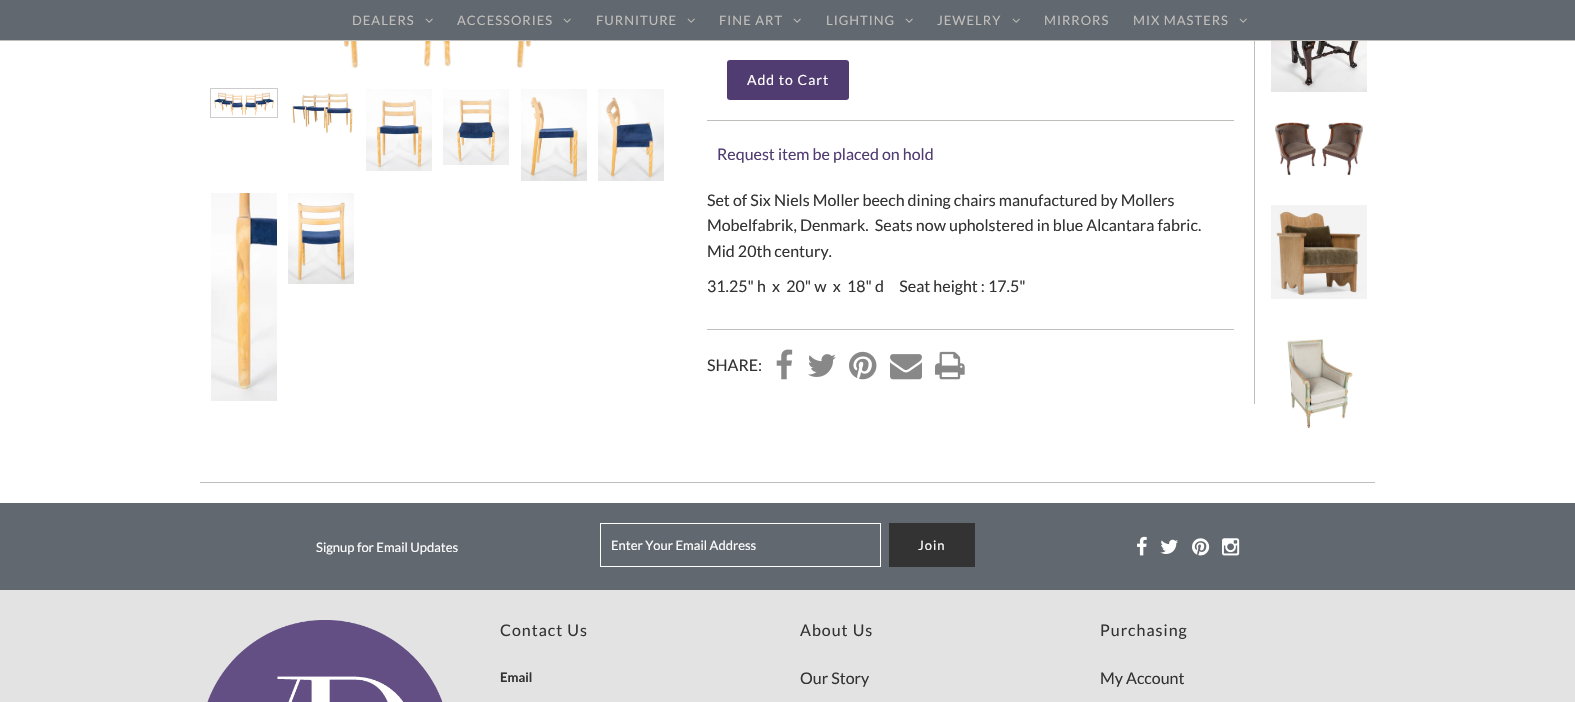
void draw(SkCanvas* canvas) {
    SkPaint paint;
    paint.setAntiAlias(true);
    auto face = [&](const char* family, int weight, float size, bool italic = false) {
        SkFontStyle style(weight, SkFontStyle::kNormal_Width,
            italic ? SkFontStyle::kItalic_Slant : SkFontStyle::kUpright_Slant);
        SkFont result(fontMgr->matchFamilyStyle(family, style), size);
        result.setSubpixel(true);
        return result;
    };
    auto write = [&](const char* s, float x, float y, const SkFont& font, SkColor color) {
        SkPaint ink(SkColor4f::FromColor(color));
        ink.setAntiAlias(true);
        canvas->drawString(s, x, y, font, ink);
    };
    auto writeSpaced = [&](const char* s, float x, float y, const SkFont& font, const SkPaint& ink, float letter, float word) {
        std::vector<SkGlyphID> glyphs(font.countText(s, strlen(s), SkTextEncoding::kUTF8));
        std::vector<float> xs(glyphs.size());
        font.textToGlyphs(s, strlen(s), SkTextEncoding::kUTF8, glyphs);
        font.getXPos(glyphs, xs, x);
        float extra = 0;
        for (size_t i = 0; i < glyphs.size(); i++) {
            xs[i] += extra;
            extra += letter + word * (glyphs[i] == font.unicharToGlyph(' '));
        }
        canvas->drawTextBlob(SkTextBlob::MakeFromPosHGlyphs(glyphs, xs, y, font), 0, 0, ink);
    };
    auto block = [&](float x, float y, float w, float h, SkColor color) {
        SkPaint ink(SkColor4f::FromColor(color));
        ink.setAntiAlias(true);
        canvas->drawRect(SkRect::MakeXYWH(x, y, w, h), ink);
    };
    auto card = [&](float x, float y, float w, float h, float radius, SkColor color) {
        SkPaint ink(SkColor4f::FromColor(color));
        ink.setAntiAlias(true);
        canvas->drawRoundRect(SkRect::MakeXYWH(x, y, w, h), radius, radius, ink);
    };
    auto paste = [&](const char* path, float x, float y, float w, float h) {
        auto image = SkImages::DeferredFromEncodedData(SkData::MakeFromFileName(path));
        canvas->drawImageRect(image, SkRect::MakeXYWH(x, y, w, h), SkSamplingOptions());
    };
    canvas->clear(SK_ColorWHITE);
    block(0, 0, 1575, 40, SkColorSetRGB(98, 104, 112));
    block(0, 40, 1575, 1, SkColorSetRGB(192, 190, 186));
    auto kFont1 = face("Lato", 400, 13);
    paint.setColor(SkColorSetRGB(192, 190, 186));
    writeSpaced("DEALERS", 352, 25, kFont1, paint, 1, 0);
    paste("pic1.png", 425, 18, 8, 5);
    writeSpaced("ACCESSORIES", 457, 25, kFont1, paint, 1, 0);
    paste("pic1.png", 563, 18, 8, 5);
    writeSpaced("FURNITURE", 596, 25, kFont1, paint, 1, 0);
    paste("pic1.png", 687, 18, 8, 5);
    writeSpaced("FINE ART", 719, 25, kFont1, paint, 1, 0);
    paste("pic1.png", 793, 18, 8, 5);
    writeSpaced("LIGHTING", 826, 25, kFont1, paint, 1, 0);
    paste("pic1.png", 905, 18, 8, 5);
    writeSpaced("JEWELRY", 937, 25, kFont1, paint, 1, 0);
    paste("pic1.png", 1012, 18, 8, 5);
    writeSpaced("MIRRORS", 1044, 25, kFont1, paint, 1, 0);
    writeSpaced("MIX MASTERS", 1133, 25, kFont1, paint, 1, 0);
    paste("pic1.png", 1239, 18, 8, 5);
    paste("pic2.png", 232, 41, 411, 28);
    paint.setStyle(SkPaint::kStroke_Style);
    paint.setStrokeWidth(1);
    paint.setColor(SkColorSetRGB(204, 204, 204));
    canvas->drawRect(SkRect::MakeXYWH(210.5f, 88.5f, 67, 29), paint);
    paste("pic3.png", 214, 92, 60, 24);
    paste("pic4.png", 292, 93, 61, 40);
    paste("pic5.png", 366, 89, 66, 82);
    paste("pic6.png", 443, 89, 66, 76);
    paste("pic7.png", 521, 89, 66, 92);
    paste("pic8.png", 598, 89, 66, 92);
    paste("pic9.png", 211, 193, 66, 208);
    paste("pic10.png", 288, 193, 66, 91);
    block(1254, 41, 1, 363, SkColorSetRGB(192, 190, 186));
    block(707, 120, 527, 1, SkColorSetRGB(192, 190, 186));
    card(727, 60, 122, 40, 3, SkColorSetRGB(81, 60, 113));
    auto kFont2 = face("Lato", 400, 14);
    paint.setStyle(SkPaint::kFill_Style);
    paint.setColor(SK_ColorWHITE);
    writeSpaced("Add to Cart", 747, 85, kFont2, paint, 1, 0);
    auto kFont3 = face("Lato", 400, 16);
    write("Request item be placed on hold", 717, 160, kFont3, SkColorSetRGB(81, 60, 113));
    write("Set of Six Niels Moller beech dining chairs manufactured by Mollers", 707, 206, kFont3, SkColorSetRGB(51, 51, 51));
    write("Mobelfabrik, Denmark.  Seats now upholstered in blue Alcantara fabric.", 707, 231, kFont3, SkColorSetRGB(51, 51, 51));
    write("Mid 20th century.", 707, 257, kFont3, SkColorSetRGB(51, 51, 51));
    write("31.25\" h  x  20\" w  x  18\" d     Seat height : 17.5\"", 707, 292, kFont3, SkColorSetRGB(51, 51, 51));
    block(707, 329, 527, 1, SkColorSetRGB(192, 190, 186));
    write("SHARE:", 707, 371, kFont3, SkColorSetRGB(51, 51, 51));
    paste("pic11.png", 776, 349, 17, 31);
    paste("pic12.png", 808, 354, 28, 23);
    paste("pic13.png", 849, 351, 28, 29);
    paste("pic14.png", 890, 354, 32, 26);
    paste("pic15.png", 935, 351, 30, 29);
    paste("pic16.png", 1271, 41, 96, 51);
    paste("pic17.png", 1275, 122, 88, 54);
    paste("pic18.png", 1271, 205, 96, 94);
    paste("pic19.png", 1287, 339, 66, 90);
    block(200, 482, 1175, 1, SkColorSetRGB(192, 190, 186));
    block(0, 503, 1575, 87, SkColorSetRGB(98, 104, 112));
    write("Signup for Email Updates", 316, 552, kFont1, SK_ColorWHITE);
    paint.setStyle(SkPaint::kStroke_Style);
    canvas->drawRect(SkRect::MakeXYWH(600.5f, 523.5f, 280, 43), paint);
    write("Enter Your Email Address", 611, 550, kFont1, SK_ColorWHITE);
    block(889, 523, 86, 44, SkColorSetRGB(51, 51, 51));
    paint.setStyle(SkPaint::kFill_Style);
    writeSpaced("Join", 918, 550, kFont1, paint, 1, 0);
    paste("pic20.png", 1137, 536, 10, 20);
    paste("pic21.png", 1160, 539, 18, 15);
    paste("pic22.png", 1192, 538, 18, 18);
    paste("pic23.png", 1222, 538, 18, 18);
    block(0, 590, 1575, 112, SkColorSetRGB(227, 227, 227));
    paste("pic24.png", 207, 620, 236, 82);
    paint.setColor(SkColorSetRGB(51, 51, 51));
    writeSpaced("Contact Us", 500, 636, kFont3, paint, 1, 0);
    auto kFont4 = face("Lato", 700, 13);
    write("Email", 500, 682, kFont4, SkColorSetRGB(51, 51, 51));
    writeSpaced("About Us", 800, 636, kFont3, paint, 1, 0);
    write("Our Story", 800, 684, kFont3, SkColorSetRGB(51, 51, 51));
    writeSpaced("Purchasing", 1100, 636, kFont3, paint, 1, 0);
    write("My Account", 1100, 684, kFont3, SkColorSetRGB(51, 51, 51));
}
